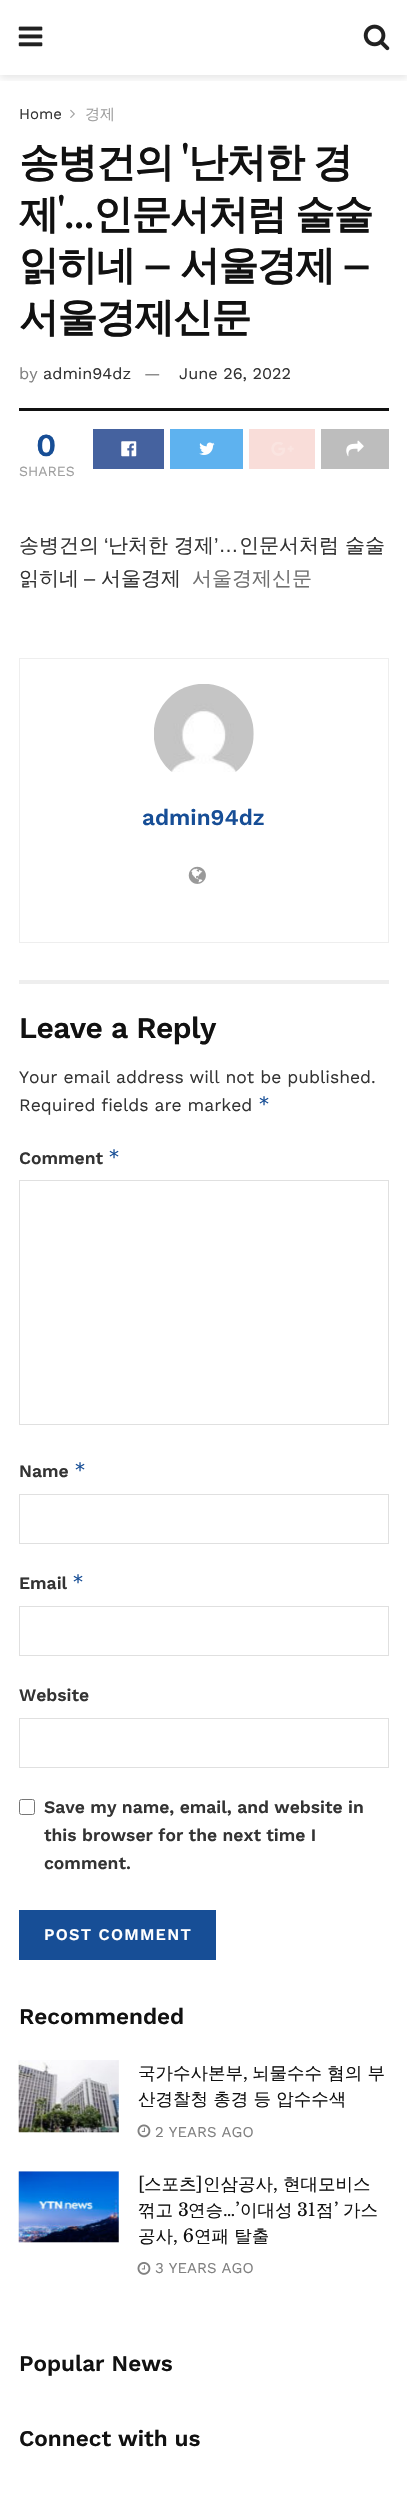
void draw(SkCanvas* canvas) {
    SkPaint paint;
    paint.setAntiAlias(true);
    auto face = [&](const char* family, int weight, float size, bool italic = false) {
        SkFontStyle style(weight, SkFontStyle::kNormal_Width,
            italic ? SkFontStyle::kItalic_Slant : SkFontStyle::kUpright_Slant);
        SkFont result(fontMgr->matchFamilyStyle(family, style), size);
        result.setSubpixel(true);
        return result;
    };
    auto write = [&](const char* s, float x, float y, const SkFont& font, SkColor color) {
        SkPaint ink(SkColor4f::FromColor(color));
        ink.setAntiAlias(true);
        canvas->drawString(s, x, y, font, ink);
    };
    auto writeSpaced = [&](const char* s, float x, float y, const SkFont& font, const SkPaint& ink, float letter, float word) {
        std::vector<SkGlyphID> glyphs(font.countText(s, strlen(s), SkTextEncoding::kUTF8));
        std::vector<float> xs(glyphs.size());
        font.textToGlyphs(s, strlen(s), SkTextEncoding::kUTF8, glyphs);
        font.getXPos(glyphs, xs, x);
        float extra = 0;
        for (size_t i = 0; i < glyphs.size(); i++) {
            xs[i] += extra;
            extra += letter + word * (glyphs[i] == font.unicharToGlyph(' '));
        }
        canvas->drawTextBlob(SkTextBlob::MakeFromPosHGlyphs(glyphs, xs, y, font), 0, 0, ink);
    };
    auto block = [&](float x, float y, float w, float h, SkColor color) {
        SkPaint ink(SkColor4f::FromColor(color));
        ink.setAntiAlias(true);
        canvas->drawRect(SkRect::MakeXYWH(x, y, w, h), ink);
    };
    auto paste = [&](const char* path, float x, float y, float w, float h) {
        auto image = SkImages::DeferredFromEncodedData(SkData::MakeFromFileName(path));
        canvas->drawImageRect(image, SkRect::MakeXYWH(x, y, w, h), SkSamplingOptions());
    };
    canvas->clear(SK_ColorWHITE);
    canvas->save();
    canvas->clipRect(SkRect::MakeXYWH(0, 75, 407, 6));
    paint.setColor(SkColorSetARGB(26, 0, 0, 0));
    paint.setMaskFilter(SkMaskFilter::MakeBlur(kNormal_SkBlurStyle, 4));
    canvas->drawRect(SkRect::MakeXYWH(0, 3, 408, 75), paint);
    paint.setMaskFilter(nullptr);
    canvas->restore();
    paste("pic1.png", 18, 26, 25, 21);
    paste("pic2.png", 363, 24, 27, 27);
    auto kFont1 = face("Work Sans", 400, 15);
    write("Home", 19, 119, kFont1, SkColorSetRGB(51, 51, 51));
    paste("pic3.png", 70, 109, 5, 9);
    auto kFont2 = face("WenQuanYi Zen Hei", 500, 15);
    write("경제", 85, 119, kFont2, SkColorSetRGB(160, 160, 160));
    block(19, 408, 370, 3, SkColorSetRGB(17, 17, 17));
    auto kFont3 = face("WenQuanYi Zen Hei", 700, 40);
    paint.setColor(SkColorSetRGB(17, 17, 17));
    writeSpaced("송병건의", 19, 176, kFont3, paint, -1.5f, 0);
    auto kFont4 = face("Libre Baskerville", 700, 40);
    writeSpaced("'", 181, 176, kFont4, paint, -1.5f, 0);
    writeSpaced("난처한 경", 188, 176, kFont3, paint, -1.5f, -1);
    writeSpaced("제", 19, 228, kFont3, paint, -1.5f, 0);
    writeSpaced("'…", 57, 228, kFont4, paint, -1.5f, 0);
    writeSpaced("인문서처럼 술술", 93, 228, kFont3, paint, -1.5f, -1);
    writeSpaced("읽히네", 19, 279, kFont3, paint, -1.5f, 0);
    writeSpaced("–", 143, 279, kFont4, paint, -1.5f, 0);
    writeSpaced("서울경제", 180, 279, kFont3, paint, -1.5f, 0);
    writeSpaced("–", 342, 279, kFont4, paint, -1.5f, 0);
    writeSpaced("서울경제신문", 19, 331, kFont3, paint, -1.5f, 0);
    auto kFont5 = face("Work Sans", 400, 16.25f);
    write("by", 19, 379, kFont5, SkColorSetRGB(128, 128, 128));
    write("admin94dz", 43, 379, kFont5, SkColorSetRGB(51, 51, 51));
    write("—", 144, 379, kFont5, SkColorSetRGB(128, 128, 128));
    write("June 26, 2022", 179, 379, kFont5, SkColorSetRGB(51, 51, 51));
    auto kFont6 = face("Work Sans", 600, 32);
    write("0", 36, 456, kFont6, SkColorSetRGB(23, 78, 150));
    auto kFont7 = face("Work Sans", 400, 14);
    write("SHARES", 19, 476, kFont7, SkColorSetRGB(160, 160, 160));
    block(93, 429, 71, 40, SkColorSetRGB(69, 98, 159));
    paste("pic4.png", 121, 441, 16, 16);
    block(170, 429, 73, 40, SkColorSetRGB(94, 178, 239));
    paste("pic5.png", 199, 442, 16, 13);
    block(249, 429, 66, 40, SkColorSetRGB(249, 221, 217));
    paste("pic6.png", 271, 442, 23, 14);
    block(321, 429, 68, 40, SkColorSetRGB(189, 189, 189));
    paste("pic7.png", 346, 440, 18, 17);
    auto kFont8 = face("WenQuanYi Zen Hei", 500, 20);
    write("송병건의", 19, 552, kFont8, SkColorSetRGB(51, 51, 51));
    auto kFont9 = face("Liberation Sans", 400, 20);
    write("‘", 104, 552, kFont9, SkColorSetRGB(51, 51, 51));
    write("난처한 경제", 108, 552, kFont8, SkColorSetRGB(51, 51, 51));
    write("’…", 214, 552, kFont9, SkColorSetRGB(51, 51, 51));
    write("인문서처럼 술술", 239, 552, kFont8, SkColorSetRGB(51, 51, 51));
    write("읽히네", 19, 585, kFont8, SkColorSetRGB(51, 51, 51));
    write("–", 84, 585, kFont9, SkColorSetRGB(51, 51, 51));
    write("서울경제", 101, 585, kFont8, SkColorSetRGB(51, 51, 51));
    write("서울경제신문", 192, 585, kFont8, SkColorSetRGB(111, 111, 111));
    paint.setStyle(SkPaint::kStroke_Style);
    paint.setStrokeWidth(1);
    paint.setColor(SkColorSetRGB(238, 238, 238));
    canvas->drawRect(SkRect::MakeXYWH(19.5f, 658.5f, 369, 284), paint);
    paste("pic8.png", 154, 684, 100, 88);
    auto kFont10 = face("Work Sans", 600, 22.5f);
    write("admin94dz", 142, 825, kFont10, SkColorSetRGB(23, 78, 150));
    paste("pic9.png", 188, 866, 18, 18);
    block(19, 980, 370, 4, SkColorSetRGB(238, 238, 238));
    auto kFont11 = face("Work Sans", 600, 30);
    paint.setStyle(SkPaint::kFill_Style);
    paint.setColor(SkColorSetRGB(17, 17, 17));
    writeSpaced("Leave a Reply", 19, 1038, kFont11, paint, -0.6f, 0);
    auto kFont12 = face("Work Sans", 400, 17.5f);
    write("Your email address will not be published.", 19, 1083, kFont12, SkColorSetRGB(51, 51, 51));
    write("Required fields are marked", 19, 1111, kFont12, SkColorSetRGB(51, 51, 51));
    auto kFont13 = face("DejaVu Sans Mono", 400, 20);
    write("*", 258, 1111, kFont13, SkColorSetRGB(23, 78, 150));
    auto kFont14 = face("Work Sans", 600, 17.5f);
    write("Comment", 19, 1164, kFont14, SkColorSetRGB(51, 51, 51));
    write("*", 108, 1164, kFont13, SkColorSetRGB(23, 78, 150));
    paint.setStyle(SkPaint::kStroke_Style);
    paint.setColor(SkColorSetRGB(224, 224, 224));
    canvas->drawRect(SkRect::MakeXYWH(19.5f, 1180.5f, 369, 244), paint);
    write("Name", 19, 1477, kFont14, SkColorSetRGB(51, 51, 51));
    write("*", 74, 1477, kFont13, SkColorSetRGB(23, 78, 150));
    canvas->drawRect(SkRect::MakeXYWH(19.5f, 1494.5f, 369, 49), paint);
    write("Email", 19, 1589, kFont14, SkColorSetRGB(51, 51, 51));
    write("*", 72, 1589, kFont13, SkColorSetRGB(23, 78, 150));
    canvas->drawRect(SkRect::MakeXYWH(19.5f, 1606.5f, 369, 49), paint);
    write("Website", 19, 1701, kFont14, SkColorSetRGB(51, 51, 51));
    canvas->drawRect(SkRect::MakeXYWH(19.5f, 1718.5f, 369, 49), paint);
    paint.setColor(SkColorSetRGB(118, 118, 118));
    canvas->drawRoundRect(SkRect::MakeXYWH(19.5f, 1799.5f, 15, 15), 2, 2, paint);
    write("Save my name, email, and website in", 44, 1813, kFont14, SkColorSetRGB(51, 51, 51));
    write("this browser for the next time I", 44, 1841, kFont14, SkColorSetRGB(51, 51, 51));
    write("comment.", 44, 1869, kFont14, SkColorSetRGB(51, 51, 51));
    block(19, 1910, 197, 50, SkColorSetRGB(23, 78, 150));
    auto kFont15 = face("Work Sans", 600, 16.25f);
    paint.setStyle(SkPaint::kFill_Style);
    paint.setColor(SK_ColorWHITE);
    writeSpaced("POST COMMENT", 44, 1940, kFont15, paint, 1.25f, 0);
    write("Recommended", 19, 2024, kFont10, SkColorSetRGB(17, 17, 17));
    block(19, 2060, 100, 73, SkColorSetRGB(247, 247, 247));
    paste("pic10.png", 18, 2060, 1, 72);
    paste("pic11.png", 18, 2060, 101, 73);
    auto kFont16 = face("WenQuanYi Zen Hei", 500, 17.5f);
    write("국가수사본부", 138, 2079, kFont16, SkColorSetRGB(17, 17, 17));
    auto kFont17 = face("Libre Baskerville", 400, 17.5f);
    write(",", 243, 2079, kFont17, SkColorSetRGB(17, 17, 17));
    write("뇌물수수 혐의 부", 252, 2079, kFont16, SkColorSetRGB(17, 17, 17));
    write("산경찰청 총경 등 압수수색", 138, 2105, kFont16, SkColorSetRGB(17, 17, 17));
    paste("pic12.png", 137, 2124, 14, 14);
    write("2 YEARS AGO", 155, 2137, kFont1, SkColorSetRGB(128, 128, 128));
    block(19, 2171, 100, 72, SkColorSetRGB(247, 247, 247));
    paste("pic13.png", 18, 2171, 17, 71);
    paste("pic14.png", 18, 2171, 101, 72);
    write("[", 138, 2190, kFont17, SkColorSetRGB(17, 17, 17));
    write("스포츠", 144, 2190, kFont16, SkColorSetRGB(17, 17, 17));
    write("]", 196, 2190, kFont17, SkColorSetRGB(17, 17, 17));
    write("인삼공사", 203, 2190, kFont16, SkColorSetRGB(17, 17, 17));
    write(",", 273, 2190, kFont17, SkColorSetRGB(17, 17, 17));
    write("현대모비스", 283, 2190, kFont16, SkColorSetRGB(17, 17, 17));
    write("꺾고", 138, 2216, kFont16, SkColorSetRGB(17, 17, 17));
    write("3", 178, 2216, kFont17, SkColorSetRGB(17, 17, 17));
    write("연승", 188, 2216, kFont16, SkColorSetRGB(17, 17, 17));
    write("…’", 223, 2216, kFont17, SkColorSetRGB(17, 17, 17));
    write("이대성", 240, 2216, kFont16, SkColorSetRGB(17, 17, 17));
    write("31", 297, 2216, kFont17, SkColorSetRGB(17, 17, 17));
    write("점", 316, 2216, kFont16, SkColorSetRGB(17, 17, 17));
    write("’", 334, 2216, kFont17, SkColorSetRGB(17, 17, 17));
    write("가스", 343, 2216, kFont16, SkColorSetRGB(17, 17, 17));
    write("공사", 138, 2242, kFont16, SkColorSetRGB(17, 17, 17));
    write(", 6", 173, 2242, kFont17, SkColorSetRGB(17, 17, 17));
    write("연패 탈출", 194, 2242, kFont16, SkColorSetRGB(17, 17, 17));
    paste("pic15.png", 137, 2262, 14, 13);
    write("3 YEARS AGO", 155, 2273, kFont1, SkColorSetRGB(128, 128, 128));
    write("Popular News", 19, 2371, kFont10, SkColorSetRGB(17, 17, 17));
    write("Connect with us", 19, 2446, kFont10, SkColorSetRGB(17, 17, 17));
}
